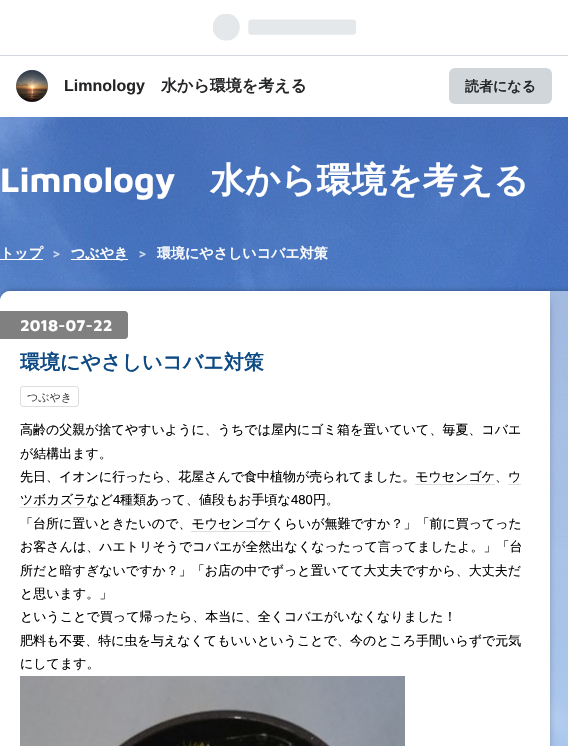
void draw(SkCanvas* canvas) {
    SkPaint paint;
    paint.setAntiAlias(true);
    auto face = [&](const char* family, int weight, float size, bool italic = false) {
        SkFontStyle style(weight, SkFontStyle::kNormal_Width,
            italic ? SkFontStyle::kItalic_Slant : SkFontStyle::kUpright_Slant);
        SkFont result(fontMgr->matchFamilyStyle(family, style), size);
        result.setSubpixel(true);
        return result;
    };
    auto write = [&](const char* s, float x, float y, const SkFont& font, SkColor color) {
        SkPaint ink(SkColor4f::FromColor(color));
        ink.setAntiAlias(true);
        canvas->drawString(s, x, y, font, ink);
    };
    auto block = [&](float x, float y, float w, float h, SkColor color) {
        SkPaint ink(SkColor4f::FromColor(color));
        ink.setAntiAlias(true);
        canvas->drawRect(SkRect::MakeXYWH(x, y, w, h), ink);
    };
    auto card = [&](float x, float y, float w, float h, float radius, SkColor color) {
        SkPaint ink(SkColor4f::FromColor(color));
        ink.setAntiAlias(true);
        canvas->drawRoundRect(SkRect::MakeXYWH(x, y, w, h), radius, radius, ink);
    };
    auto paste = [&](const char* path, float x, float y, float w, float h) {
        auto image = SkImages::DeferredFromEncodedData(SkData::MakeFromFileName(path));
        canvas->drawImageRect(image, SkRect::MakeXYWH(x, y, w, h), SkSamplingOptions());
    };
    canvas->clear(SK_ColorWHITE);
    paste("pic1.png", 0, 117, 568, 629);
    block(0, 55, 568, 1, SkColorSetRGB(210, 216, 221));
    paste("pic2.png", 213, 14, 143, 27);
    paste("pic3.png", 16, 70, 32, 32);
    auto kFont1 = face("Liberation Sans", 700, 16);
    write("Limnology", 64, 91, kFont1, SkColorSetRGB(36, 37, 39));
    auto kFont2 = face("WenQuanYi Zen Hei", 700, 16);
    write("水から環境を考える", 161, 91, kFont2, SkColorSetRGB(36, 37, 39));
    card(449, 68, 103, 36, 6, SkColorSetRGB(209, 214, 218));
    auto kFont3 = face("WenQuanYi Zen Hei", 700, 14);
    write("読者になる", 465, 91, kFont3, SkColorSetRGB(36, 37, 39));
    auto kFont4 = face("Maven Pro", 700, 35);
    write("Limnology", 0, 192, kFont4, SK_ColorWHITE);
    auto kFont5 = face("WenQuanYi Zen Hei", 700, 35);
    write("水から環境を考える", 210, 192, kFont5, SK_ColorWHITE);
    block(0, 259, 43, 1, SK_ColorWHITE);
    write("トップ", 0, 258, kFont3, SK_ColorWHITE);
    auto kFont6 = face("Maven Pro", 700, 14);
    write(">", 52, 258, kFont6, SkColorSetRGB(204, 216, 238));
    block(71, 259, 57, 1, SK_ColorWHITE);
    write("つぶやき", 71, 258, kFont3, SK_ColorWHITE);
    write(">", 138, 258, kFont6, SkColorSetRGB(204, 216, 238));
    write("環境にやさしいコバエ対策", 157, 258, kFont3, SK_ColorWHITE);
    canvas->save();
    canvas->clipPath(SkPathBuilder(SkPathFillType::kEvenOdd).moveTo(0, 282).lineTo(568, 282).lineTo(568, 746).lineTo(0, 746).close().moveTo(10, 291).lineTo(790, 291).cubicTo(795.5f, 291, 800, 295.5f, 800, 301).lineTo(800, 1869).cubicTo(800, 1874.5f, 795.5f, 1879, 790, 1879).lineTo(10, 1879).cubicTo(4.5f, 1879, 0, 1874.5f, 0, 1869).lineTo(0, 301).cubicTo(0, 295.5f, 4.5f, 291, 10, 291).close().detach(), true);
    paint.setColor(SkColorSetARGB(77, 0, 0, 0));
    paint.setMaskFilter(SkMaskFilter::MakeBlur(kNormal_SkBlurStyle, 2.5f));
    canvas->drawRoundRect(SkRect::MakeXYWH(0, 291, 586, 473), 10, 10, paint);
    paint.setMaskFilter(nullptr);
    canvas->restore();
    card(0, 291, 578, 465, 10, SkColorSetARGB(128, 255, 255, 255));
    paint.setColor(SkColorSetARGB(179, 0, 0, 0));
    paint.setMaskFilter(SkMaskFilter::MakeBlur(kNormal_SkBlurStyle, 5));
    canvas->drawRect(SkRect::MakeXYWH(15, 301, 530, 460), paint);
    paint.setMaskFilter(nullptr);
    paint.setColor(SK_ColorWHITE);
    canvas->drawPath(SkPathBuilder().moveTo(10, 291).lineTo(550, 291).lineTo(550, 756).lineTo(10, 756).cubicTo(4.5f, 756, 0, 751.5f, 0, 746).lineTo(0, 301).cubicTo(0, 295.5f, 4.5f, 291, 10, 291).close().detach(), paint);
    paint.setColor(SkColorSetRGB(128, 128, 128));
    canvas->drawPath(SkPathBuilder().moveTo(0, 311).lineTo(125, 311).cubicTo(126.5f, 311, 128, 312.5f, 128, 314).lineTo(128, 336).cubicTo(128, 337.5f, 126.5f, 339, 125, 339).lineTo(0, 339).close().detach(), paint);
    auto kFont7 = face("Maven Pro", 700, 16);
    write("2018-07-22", 20, 331, kFont7, SK_ColorWHITE);
    auto kFont8 = face("WenQuanYi Zen Hei", 700, 20);
    write("環境にやさしいコバエ対策", 20, 369, kFont8, SkColorSetRGB(14, 75, 132));
    paint.setStyle(SkPaint::kStroke_Style);
    paint.setStrokeWidth(1);
    paint.setColor(SkColorSetRGB(221, 221, 221));
    canvas->drawRoundRect(SkRect::MakeXYWH(20.5f, 386.5f, 58, 20), 2.5f, 2.5f, paint);
    auto kFont9 = face("WenQuanYi Zen Hei", 500, 11);
    write("つぶやき", 27, 401, kFont9, SkColorSetRGB(69, 69, 69));
    auto kFont10 = face("WenQuanYi Zen Hei", 500, 13);
    write("高齢の父親が捨てやすいように、うちでは屋内にゴミ箱を置いていて、毎夏、コバエ", 20, 434, kFont10, SK_ColorBLACK);
    write("が結構出ます。", 20, 458, kFont10, SK_ColorBLACK);
    write("先日、イオンに行ったら、花屋さんで食中植物が売られてました。モウセンゴケ、ウ", 20, 481, kFont10, SK_ColorBLACK);
    block(415, 484, 80, 1, SkColorSetRGB(222, 222, 222));
    write("ツボカズラなど", 20, 504, kFont10, SK_ColorBLACK);
    block(508, 484, 13, 1, SkColorSetRGB(222, 222, 222));
    block(20, 507, 67, 1, SkColorSetRGB(222, 222, 222));
    auto kFont11 = face("Liberation Sans", 400, 13);
    write("4", 113, 504, kFont11, SK_ColorBLACK);
    write("種類あって、値段もお手頃な", 120, 504, kFont10, SK_ColorBLACK);
    write("480", 291, 504, kFont11, SK_ColorBLACK);
    write("円。", 313, 504, kFont10, SK_ColorBLACK);
    write("「台所に置いときたいので、モウセンゴケくらいが無難ですか？」「前に買ってった", 20, 528, kFont10, SK_ColorBLACK);
    block(191, 531, 80, 1, SkColorSetRGB(222, 222, 222));
    write("お客さんは、ハエトリそうでコバエが全然出なくなったって言ってましたよ。」「台", 20, 551, kFont10, SK_ColorBLACK);
    write("所だと暗すぎないですか？」「お店の中でずっと置いてて大丈夫ですから、大丈夫だ", 20, 575, kFont10, SK_ColorBLACK);
    write("と思います。」", 20, 598, kFont10, SK_ColorBLACK);
    write("ということで買って帰ったら、本当に、全くコバエがいなくなりました！", 20, 621, kFont10, SK_ColorBLACK);
    write("肥料も不要、特に虫を与えなくてもいいということで、今のところ手間いらずで元気", 20, 645, kFont10, SK_ColorBLACK);
    write("にしてます。", 20, 668, kFont10, SK_ColorBLACK);
    paste("pic4.png", 20, 676, 385, 70);
}
